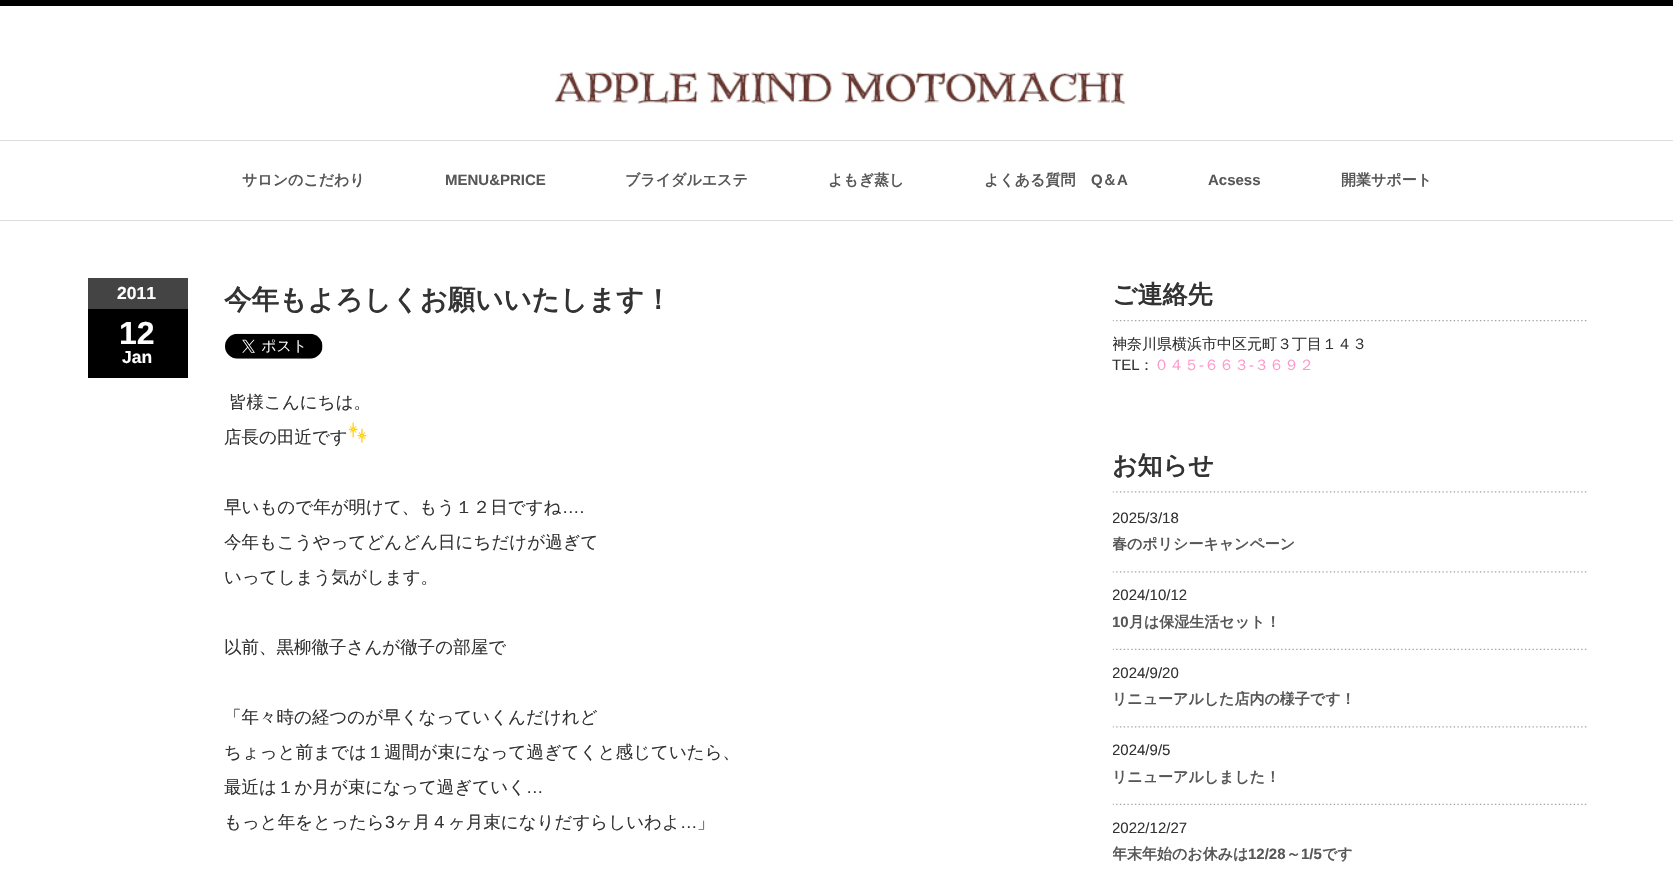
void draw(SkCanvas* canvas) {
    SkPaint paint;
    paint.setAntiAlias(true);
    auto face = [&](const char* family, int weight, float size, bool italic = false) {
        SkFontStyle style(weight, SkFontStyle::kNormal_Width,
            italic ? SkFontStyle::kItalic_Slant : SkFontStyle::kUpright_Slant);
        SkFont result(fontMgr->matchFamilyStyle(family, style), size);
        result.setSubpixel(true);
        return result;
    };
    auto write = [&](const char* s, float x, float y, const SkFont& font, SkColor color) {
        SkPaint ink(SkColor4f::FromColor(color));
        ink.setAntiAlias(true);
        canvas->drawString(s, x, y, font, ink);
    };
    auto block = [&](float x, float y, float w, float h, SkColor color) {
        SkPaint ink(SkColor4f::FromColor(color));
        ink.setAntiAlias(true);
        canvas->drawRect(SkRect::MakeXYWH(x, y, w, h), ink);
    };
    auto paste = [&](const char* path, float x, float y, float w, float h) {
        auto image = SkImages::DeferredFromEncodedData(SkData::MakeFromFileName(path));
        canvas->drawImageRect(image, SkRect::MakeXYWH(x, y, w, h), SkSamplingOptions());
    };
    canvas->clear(SK_ColorWHITE);
    block(0, 0, 1673, 6, SK_ColorBLACK);
    block(0, 220, 1673, 1, SkColorSetRGB(221, 221, 221));
    paste("pic1.png", 554, 71, 572, 34);
    block(0, 140, 1673, 1, SkColorSetRGB(221, 221, 221));
    auto kFont1 = face("WenQuanYi Zen Hei", 700, 15);
    write("サロンのこだわり", 242, 185, kFont1, SkColorSetRGB(87, 87, 87));
    auto kFont2 = face("Liberation Sans", 700, 15);
    write("MENU&PRICE", 445, 185, kFont2, SkColorSetRGB(87, 87, 87));
    write("ブライダルエステ", 625, 185, kFont1, SkColorSetRGB(87, 87, 87));
    write("よもぎ蒸し", 828, 185, kFont1, SkColorSetRGB(87, 87, 87));
    write("よくある質問", 984, 185, kFont1, SkColorSetRGB(87, 87, 87));
    write("Q", 1091, 185, kFont2, SkColorSetRGB(87, 87, 87));
    write("＆", 1102, 185, kFont1, SkColorSetRGB(87, 87, 87));
    write("A", 1117, 185, kFont2, SkColorSetRGB(87, 87, 87));
    write("Acsess", 1208, 185, kFont2, SkColorSetRGB(87, 87, 87));
    write("開業サポート", 1341, 185, kFont1, SkColorSetRGB(87, 87, 87));
    block(88, 309, 100, 69, SK_ColorBLACK);
    block(88, 278, 100, 31, SkColorSetRGB(68, 68, 68));
    auto kFont3 = face("Liberation Sans", 700, 17.5f);
    write("2011", 117, 299, kFont3, SK_ColorWHITE);
    auto kFont4 = face("Liberation Sans", 700, 32);
    write("12", 119, 344, kFont4, SK_ColorWHITE);
    write("Jan", 122, 363, kFont3, SK_ColorWHITE);
    auto kFont5 = face("WenQuanYi Zen Hei", 700, 27.5f);
    write("今年もよろしくお願いいたします！", 224, 309, kFont5, SkColorSetRGB(51, 51, 51));
    paste("pic2.png", 225, 333, 98, 26);
    auto kFont6 = face("WenQuanYi Zen Hei", 500, 17.5f);
    write("皆様こんにちは。", 229, 408, kFont6, SkColorSetRGB(51, 51, 51));
    write("店長の田近です", 224, 443, kFont6, SkColorSetRGB(51, 51, 51));
    paste("pic3.png", 348, 422, 19, 21);
    write("早いもので年が明けて、もう１２日ですね", 224, 513, kFont6, SkColorSetRGB(51, 51, 51));
    auto kFont7 = face("Liberation Sans", 400, 17.5f);
    write("….", 562, 513, kFont7, SkColorSetRGB(51, 51, 51));
    write("今年もこうやってどんどん日にちだけが過ぎて", 224, 548, kFont6, SkColorSetRGB(51, 51, 51));
    write("いってしまう気がします。", 224, 583, kFont6, SkColorSetRGB(51, 51, 51));
    write("以前、黒柳徹子さんが徹子の部屋で", 224, 653, kFont6, SkColorSetRGB(51, 51, 51));
    write("「年々時の経つのが早くなっていくんだけれど", 224, 723, kFont6, SkColorSetRGB(51, 51, 51));
    write("ちょっと前までは１週間が束になって過ぎてくと感じていたら、", 224, 758, kFont6, SkColorSetRGB(51, 51, 51));
    write("最近は１か月が束になって過ぎていく", 224, 793, kFont6, SkColorSetRGB(51, 51, 51));
    write("…", 526, 793, kFont7, SkColorSetRGB(51, 51, 51));
    write("もっと年をとったら", 224, 828, kFont6, SkColorSetRGB(51, 51, 51));
    write("3", 385, 828, kFont7, SkColorSetRGB(51, 51, 51));
    write("ヶ月４ヶ月束になりだすらしいわよ", 395, 828, kFont6, SkColorSetRGB(51, 51, 51));
    write("…", 680, 828, kFont7, SkColorSetRGB(51, 51, 51));
    write("」", 697, 828, kFont6, SkColorSetRGB(51, 51, 51));
    paste("pic4.png", 1112, 320, 475, 2);
    auto kFont8 = face("WenQuanYi Zen Hei", 700, 25);
    write("ご連絡先", 1112, 303, kFont8, SkColorSetRGB(51, 51, 51));
    canvas->save();
    canvas->clipRect(SkRect::MakeXYWH(1113, 278, 475, 121));
    auto kFont9 = face("WenQuanYi Zen Hei", 500, 15);
    write("神奈川県横浜市中区元町３丁目１４３", 1112, 349, kFont9, SkColorSetRGB(51, 51, 51));
    canvas->restore();
    auto kFont10 = face("Liberation Sans", 400, 15);
    write("TEL", 1112, 370, kFont10, SkColorSetRGB(51, 51, 51));
    write("：", 1139, 370, kFont9, SkColorSetRGB(51, 51, 51));
    write("０４５", 1154, 370, kFont9, SkColorSetRGB(255, 153, 204));
    write("-", 1199, 370, kFont10, SkColorSetRGB(255, 153, 204));
    write("６６３", 1204, 370, kFont9, SkColorSetRGB(255, 153, 204));
    write("-", 1249, 370, kFont10, SkColorSetRGB(255, 153, 204));
    write("３６９２", 1254, 370, kFont9, SkColorSetRGB(255, 153, 204));
    paste("pic5.png", 1112, 491, 475, 2);
    write("お知らせ", 1112, 474, kFont8, SkColorSetRGB(51, 51, 51));
    paste("pic5.png", 1112, 571, 475, 2);
    canvas->save();
    canvas->clipRect(SkRect::MakeXYWH(1113, 449, 475, 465));
    write("2025/3/18", 1112, 523, kFont10, SkColorSetRGB(51, 51, 51));
    write("春のポリシーキャンペーン", 1112, 549, kFont1, SkColorSetRGB(87, 87, 87));
    canvas->restore();
    paste("pic6.png", 1112, 648, 475, 2);
    canvas->save();
    canvas->clipRect(SkRect::MakeXYWH(1113, 449, 475, 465));
    write("2024/10/12", 1112, 600, kFont10, SkColorSetRGB(51, 51, 51));
    write("10", 1112, 627, kFont2, SkColorSetRGB(87, 87, 87));
    canvas->restore();
    write("月は保湿生活セット！", 1129, 627, kFont1, SkColorSetRGB(87, 87, 87));
    paste("pic5.png", 1112, 726, 475, 2);
    canvas->save();
    canvas->clipRect(SkRect::MakeXYWH(1113, 449, 475, 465));
    write("2024/9/20", 1112, 678, kFont10, SkColorSetRGB(51, 51, 51));
    canvas->restore();
    write("リニューアルした店内の様子です！", 1112, 704, kFont1, SkColorSetRGB(87, 87, 87));
    paste("pic6.png", 1112, 803, 475, 2);
    canvas->save();
    canvas->clipRect(SkRect::MakeXYWH(1113, 449, 475, 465));
    write("2024/9/5", 1112, 755, kFont10, SkColorSetRGB(51, 51, 51));
    canvas->restore();
    write("リニューアルしました！", 1112, 782, kFont1, SkColorSetRGB(87, 87, 87));
    canvas->save();
    canvas->clipRect(SkRect::MakeXYWH(1113, 449, 475, 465));
    write("2022/12/27", 1112, 833, kFont10, SkColorSetRGB(51, 51, 51));
    write("年末年始のお休みは", 1112, 859, kFont1, SkColorSetRGB(87, 87, 87));
    canvas->restore();
    write("12/28", 1248, 859, kFont2, SkColorSetRGB(87, 87, 87));
    write("～", 1286, 859, kFont1, SkColorSetRGB(87, 87, 87));
    write("1/5", 1301, 859, kFont2, SkColorSetRGB(87, 87, 87));
    write("です", 1322, 859, kFont1, SkColorSetRGB(87, 87, 87));
}
